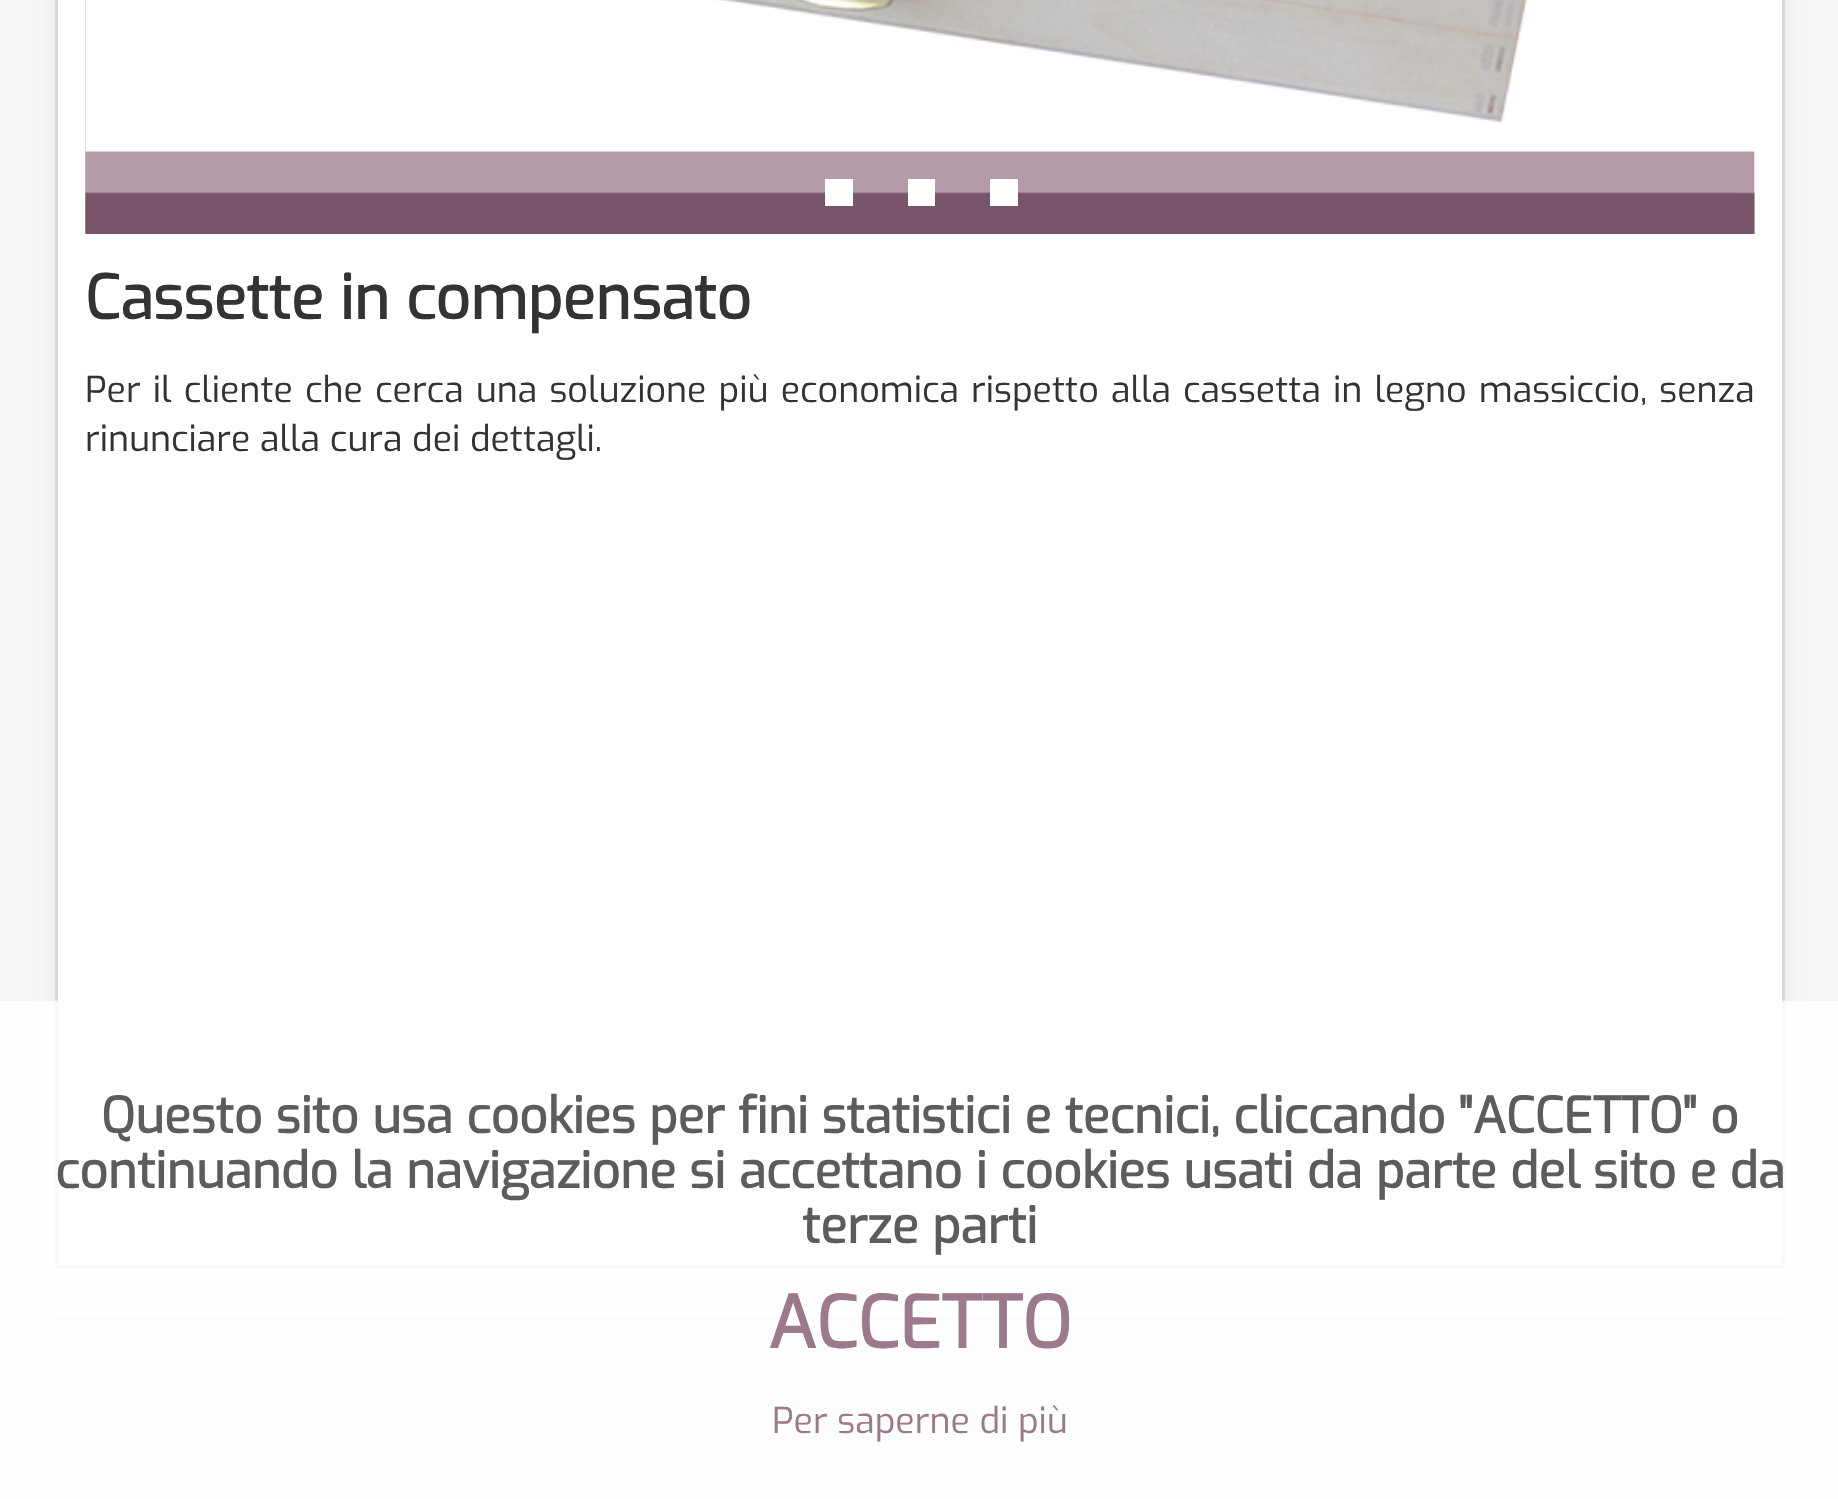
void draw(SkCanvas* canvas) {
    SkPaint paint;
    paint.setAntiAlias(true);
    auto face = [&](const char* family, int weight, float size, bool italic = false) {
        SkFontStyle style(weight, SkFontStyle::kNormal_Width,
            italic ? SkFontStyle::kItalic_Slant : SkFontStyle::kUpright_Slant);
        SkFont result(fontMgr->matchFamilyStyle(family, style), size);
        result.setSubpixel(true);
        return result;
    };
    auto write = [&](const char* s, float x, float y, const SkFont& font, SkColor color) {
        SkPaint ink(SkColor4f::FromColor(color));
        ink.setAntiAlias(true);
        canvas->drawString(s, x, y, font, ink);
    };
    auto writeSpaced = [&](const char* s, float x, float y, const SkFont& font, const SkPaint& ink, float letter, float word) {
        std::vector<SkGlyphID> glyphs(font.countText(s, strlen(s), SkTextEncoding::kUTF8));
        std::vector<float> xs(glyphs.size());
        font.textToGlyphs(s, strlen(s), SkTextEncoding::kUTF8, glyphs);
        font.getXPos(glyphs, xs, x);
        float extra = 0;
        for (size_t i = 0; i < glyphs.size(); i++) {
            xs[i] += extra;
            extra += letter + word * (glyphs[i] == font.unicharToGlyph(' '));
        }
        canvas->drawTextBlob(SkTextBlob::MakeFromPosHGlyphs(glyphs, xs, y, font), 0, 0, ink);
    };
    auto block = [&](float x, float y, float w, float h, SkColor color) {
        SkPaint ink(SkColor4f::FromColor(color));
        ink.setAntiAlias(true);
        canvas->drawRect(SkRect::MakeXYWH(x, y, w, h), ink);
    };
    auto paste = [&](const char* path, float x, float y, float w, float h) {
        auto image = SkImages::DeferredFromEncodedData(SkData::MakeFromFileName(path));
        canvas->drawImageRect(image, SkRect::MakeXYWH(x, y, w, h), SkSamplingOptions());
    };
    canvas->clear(SkColorSetRGB(244, 246, 247));
    paint.setColor(SkColorSetARGB(13, 0, 0, 0));
    paint.setMaskFilter(SkMaskFilter::MakeBlur(kNormal_SkBlurStyle, 8));
    canvas->drawRect(SkRect::MakeXYWH(55, -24, 1730, 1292), paint);
    paint.setMaskFilter(nullptr);
    paint.setColor(SK_ColorWHITE);
    canvas->drawRect(SkRect::MakeXYWH(56.5f, -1.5f, 1727, 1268), paint);
    paint.setStyle(SkPaint::kStroke_Style);
    paint.setStrokeWidth(3);
    paint.setColor(SkColorSetRGB(217, 217, 217));
    canvas->drawRect(SkRect::MakeXYWH(56.5f, -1.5f, 1727, 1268), paint);
    block(85, 0, 1670, 234, SkColorSetRGB(192, 192, 192));
    paste("pic1.png", 85, 0, 1650, 193);
    block(1735, 0, 20, 193, SK_ColorWHITE);
    paste("pic2.png", 85, 151, 1670, 83);
    block(825, 179, 28, 27, SK_ColorWHITE);
    block(908, 179, 27, 27, SK_ColorWHITE);
    block(990, 179, 28, 27, SK_ColorWHITE);
    auto kFont1 = face("Exo", 700, 60.5f);
    write("Cassette in compensato", 85, 319, kFont1, SkColorSetRGB(51, 51, 51));
    auto kFont2 = face("Exo", 400, 35.75f);
    paint.setStyle(SkPaint::kFill_Style);
    paint.setColor(SkColorSetRGB(51, 51, 51));
    writeSpaced("Per il cliente che cerca una soluzione più economica rispetto alla cassetta in legno massiccio, senza", 85, 402, kFont2, paint, 0, 2.5f);
    write("rinunciare alla cura dei dettagli.", 85, 451, kFont2, SkColorSetRGB(51, 51, 51));
    block(55, 1317, 1730, 3, SkColorSetRGB(238, 238, 238));
    block(55, 1320, 1730, 3, SK_ColorWHITE);
    block(0, 1001, 1838, 498, SkColorSetARGB(204, 255, 255, 255));
    auto kFont3 = face("Exo", 700, 49.5f);
    write("Questo sito usa cookies per fini statistici e tecnici, cliccando \"ACCETTO\" o", 101, 1133, kFont3, SkColorSetRGB(92, 92, 92));
    write("continuando la navigazione si accettano i cookies usati da parte del sito e da", 55, 1188, kFont3, SkColorSetRGB(92, 92, 92));
    write("terze parti", 802, 1243, kFont3, SkColorSetRGB(92, 92, 92));
    auto kFont4 = face("Exo", 700, 71.5f);
    write("ACCETTO", 768, 1348, kFont4, SkColorSetRGB(156, 122, 139));
    write("Per saperne di più", 772, 1433, kFont2, SkColorSetRGB(156, 122, 139));
}
